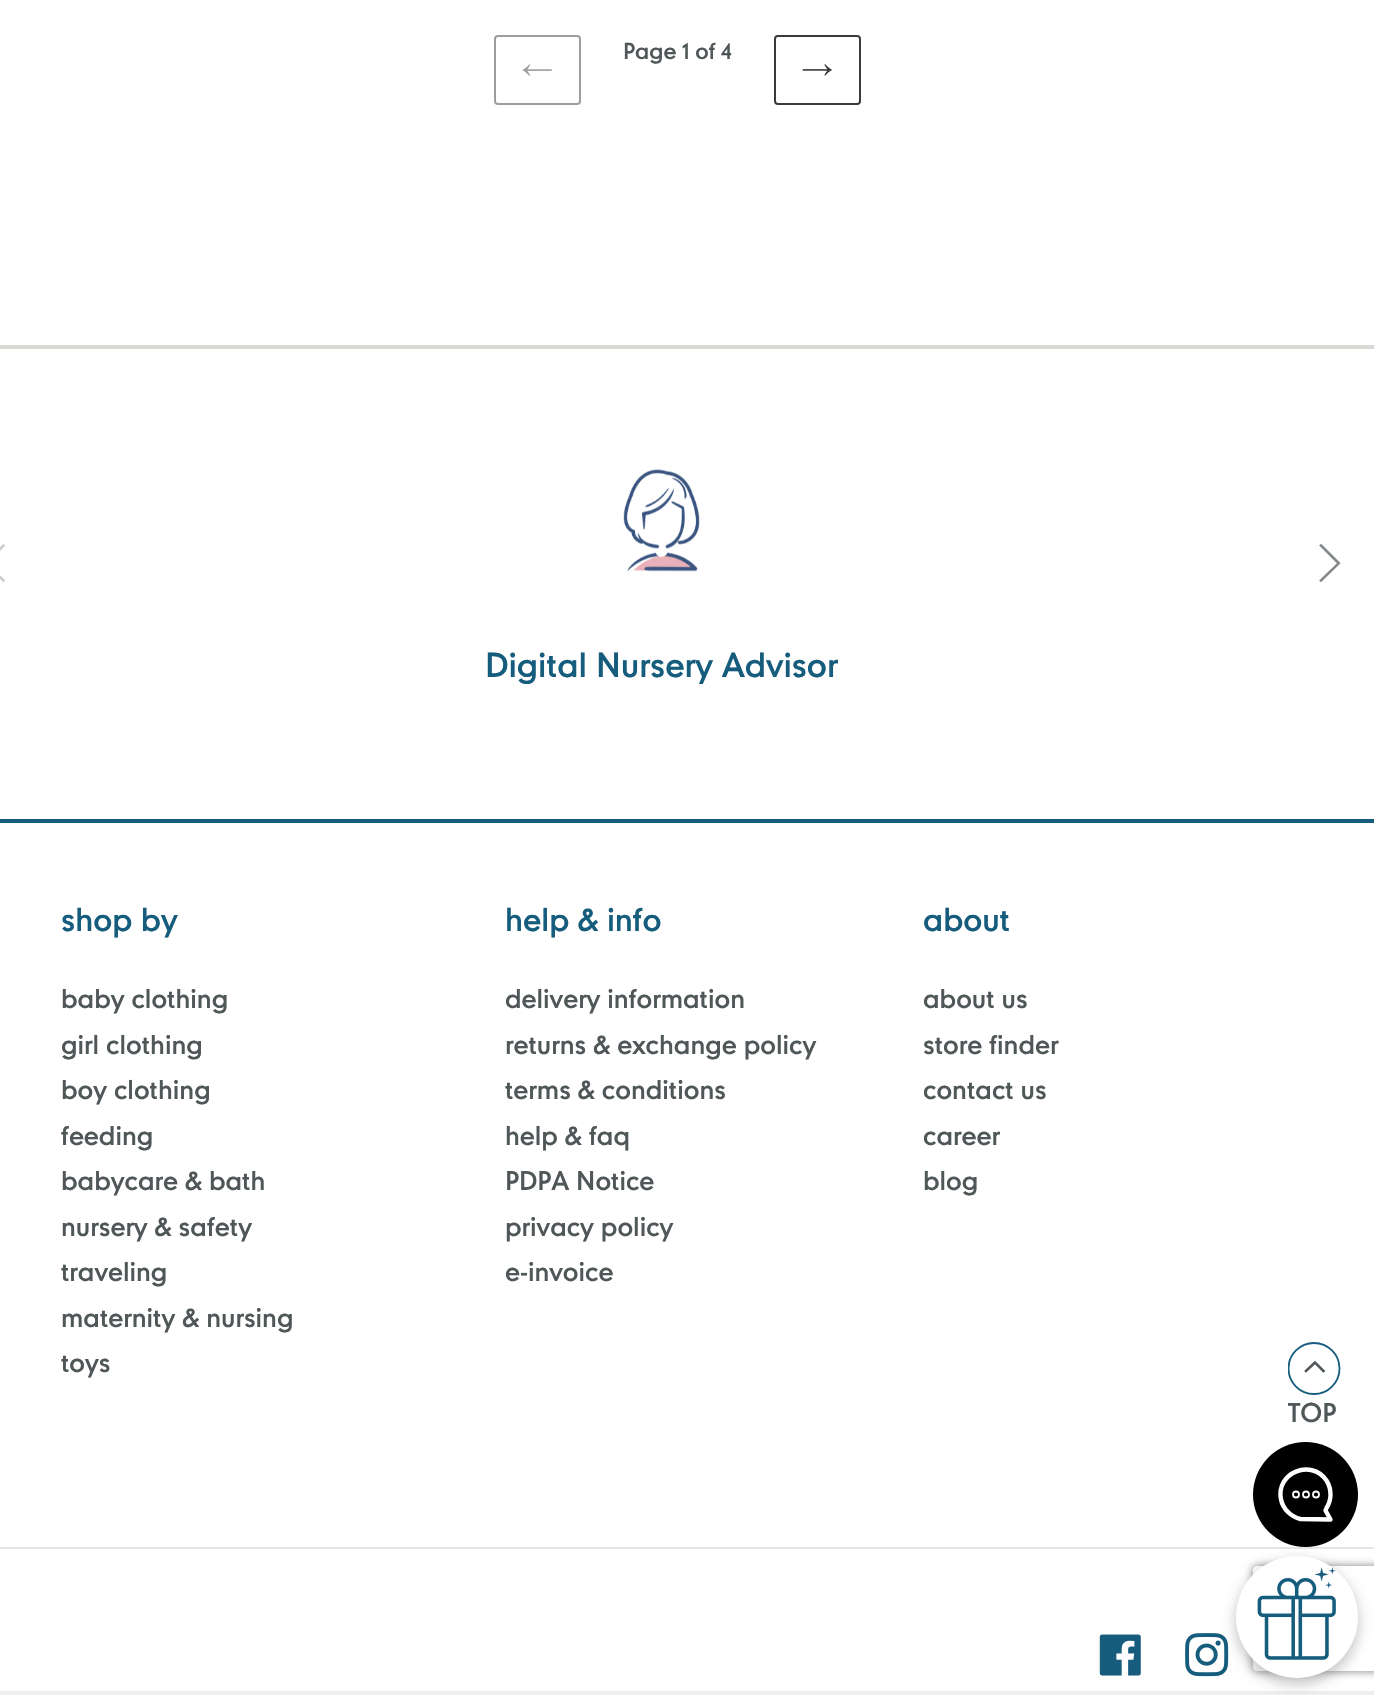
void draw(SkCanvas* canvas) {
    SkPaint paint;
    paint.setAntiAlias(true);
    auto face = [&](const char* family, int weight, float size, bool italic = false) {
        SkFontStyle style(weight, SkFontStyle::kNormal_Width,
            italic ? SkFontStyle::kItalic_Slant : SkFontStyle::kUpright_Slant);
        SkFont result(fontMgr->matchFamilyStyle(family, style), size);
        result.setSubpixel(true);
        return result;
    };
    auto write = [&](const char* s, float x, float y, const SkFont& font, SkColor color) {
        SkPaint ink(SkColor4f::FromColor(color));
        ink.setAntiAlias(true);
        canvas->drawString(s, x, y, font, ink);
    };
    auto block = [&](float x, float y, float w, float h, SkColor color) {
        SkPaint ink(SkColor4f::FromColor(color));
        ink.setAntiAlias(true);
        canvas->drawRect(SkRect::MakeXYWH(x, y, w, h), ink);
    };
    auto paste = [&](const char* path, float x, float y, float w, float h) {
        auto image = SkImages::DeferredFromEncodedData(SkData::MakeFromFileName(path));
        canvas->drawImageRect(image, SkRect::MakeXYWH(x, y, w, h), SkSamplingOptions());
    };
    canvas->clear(SK_ColorWHITE);
    paint.setStyle(SkPaint::kStroke_Style);
    paint.setStrokeWidth(2);
    paint.setColor(SkColorSetRGB(157, 157, 157));
    canvas->drawRoundRect(SkRect::MakeXYWH(495, 36, 85, 68), 3, 3, paint);
    paste("pic1.png", 522, 64, 30, 12);
    auto kFont1 = face("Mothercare", 400, 21);
    write("Page 1 of 4", 623, 59, kFont1, SkColorSetRGB(80, 87, 89));
    paint.setColor(SkColorSetRGB(58, 58, 58));
    canvas->drawRoundRect(SkRect::MakeXYWH(775, 36, 85, 68), 3, 3, paint);
    paste("pic2.png", 802, 64, 30, 12);
    block(0, 345, 1374, 4, SkColorSetRGB(217, 217, 214));
    paint.setStrokeWidth(2.6f);
    paint.setStrokeCap(SkPaint::kSquare_Cap);
    paint.setColor(SkColorSetRGB(203, 205, 205));
    canvas->drawPath(SkPathBuilder().moveTo(3.5f, 545.5f).lineTo(-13.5f, 563).moveTo(3.5f, 580.5f).lineTo(-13.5f, 563.5f).detach(), paint);
    paint.setColor(SkColorSetRGB(133, 137, 139));
    canvas->drawPath(SkPathBuilder().moveTo(1321, 545.5f).lineTo(1338.5f, 563).moveTo(1321, 580.5f).lineTo(1338.5f, 563.5f).detach(), paint);
    paste("pic3.png", 623, 469, 77, 103);
    auto kFont2 = face("Mothercare", 400, 31.5f);
    write("Digital Nursery Advisor", 485, 677, kFont2, SkColorSetRGB(22, 92, 125));
    block(0, 819, 1374, 4, SkColorSetRGB(22, 92, 125));
    auto kFont3 = face("Mothercare", 400, 29.75f);
    write("shop by", 61, 931, kFont3, SkColorSetRGB(22, 92, 125));
    auto kFont4 = face("Mothercare", 400, 24.5f);
    write("baby clothing", 61, 1008, kFont4, SkColorSetRGB(80, 87, 89));
    write("girl clothing", 61, 1054, kFont4, SkColorSetRGB(80, 87, 89));
    write("boy clothing", 61, 1099, kFont4, SkColorSetRGB(80, 87, 89));
    write("feeding", 61, 1145, kFont4, SkColorSetRGB(80, 87, 89));
    write("babycare & bath", 61, 1190, kFont4, SkColorSetRGB(80, 87, 89));
    write("nursery & safety", 61, 1236, kFont4, SkColorSetRGB(80, 87, 89));
    write("traveling", 61, 1281, kFont4, SkColorSetRGB(80, 87, 89));
    write("maternity & nursing", 61, 1327, kFont4, SkColorSetRGB(80, 87, 89));
    write("toys", 61, 1372, kFont4, SkColorSetRGB(80, 87, 89));
    write("help & info", 505, 931, kFont3, SkColorSetRGB(22, 92, 125));
    write("delivery information", 505, 1008, kFont4, SkColorSetRGB(80, 87, 89));
    write("returns & exchange policy", 505, 1054, kFont4, SkColorSetRGB(80, 87, 89));
    write("terms & conditions", 505, 1099, kFont4, SkColorSetRGB(80, 87, 89));
    write("help & faq", 505, 1145, kFont4, SkColorSetRGB(80, 87, 89));
    write("PDPA Notice", 505, 1190, kFont4, SkColorSetRGB(80, 87, 89));
    write("privacy policy", 505, 1236, kFont4, SkColorSetRGB(80, 87, 89));
    write("e-invoice", 505, 1281, kFont4, SkColorSetRGB(80, 87, 89));
    write("about", 923, 931, kFont3, SkColorSetRGB(22, 92, 125));
    write("about us", 923, 1008, kFont4, SkColorSetRGB(80, 87, 89));
    write("store finder", 923, 1054, kFont4, SkColorSetRGB(80, 87, 89));
    write("contact us", 923, 1099, kFont4, SkColorSetRGB(80, 87, 89));
    write("career", 923, 1145, kFont4, SkColorSetRGB(80, 87, 89));
    write("blog", 923, 1190, kFont4, SkColorSetRGB(80, 87, 89));
    block(0, 1547, 1374, 2, SkColorSetRGB(230, 230, 230));
    paste("pic4.png", 1099, 1634, 42, 42);
    paste("pic5.png", 1185, 1633, 44, 44);
    block(0, 1691, 1374, 4, SkColorSetRGB(239, 239, 239));
    canvas->save();
    canvas->clipRect(SkRect::MakeXYWH(1288, 1342, 53, 53));
    paint.setStrokeWidth(1.8f);
    paint.setStrokeCap(SkPaint::kButt_Cap);
    paint.setColor(SkColorSetRGB(22, 92, 125));
    canvas->drawCircle(1314, 1368.5f, 25.5f, paint);
    canvas->restore();
    paint.setStrokeWidth(2.6f);
    paint.setStrokeCap(SkPaint::kSquare_Cap);
    paint.setColor(SkColorSetRGB(80, 87, 89));
    canvas->drawPath(SkPathBuilder().moveTo(1306, 1371).lineTo(1315, 1362.5f).moveTo(1323.5f, 1371).lineTo(1315, 1362.5f).detach(), paint);
    write("TOP", 1288, 1422, kFont4, SkColorSetRGB(80, 87, 89));
    paint.setStyle(SkPaint::kFill_Style);
    paint.setColor(SkColorSetARGB(61, 0, 0, 0));
    paint.setMaskFilter(SkMaskFilter::MakeBlur(kNormal_SkBlurStyle, 7));
    canvas->drawRoundRect(SkRect::MakeXYWH(1236, 1561, 122, 123), 61, 61, paint);
    paint.setMaskFilter(nullptr);
    paint.setColor(SK_ColorBLACK);
    canvas->drawCircle(1305.5f, 1494.5f, 52.5f, paint);
    paint.setStyle(SkPaint::kStroke_Style);
    paint.setStrokeWidth(4.4f);
    paint.setStrokeCap(SkPaint::kRound_Cap);
    paint.setStrokeJoin(SkPaint::kRound_Join);
    paint.setColor(SK_ColorWHITE);
    canvas->drawPath(SkPathBuilder().moveTo(1330.5f, 1494.5f).cubicTo(1330.5f, 1499.5f, 1329, 1504, 1326.5f, 1508).lineTo(1325.5f, 1510.5f).lineTo(1330.5f, 1519.5f).lineTo(1300.5f, 1519).cubicTo(1291, 1517, 1283, 1509, 1281, 1499.5f).cubicTo(1275.5f, 1473, 1311, 1458, 1326.5f, 1480.5f).cubicTo(1329, 1484.5f, 1330.5f, 1489.5f, 1330.5f, 1494.5f).close().detach(), paint);
    paint.setStrokeWidth(1.8f);
    paint.setStrokeCap(SkPaint::kButt_Cap);
    paint.setStrokeJoin(SkPaint::kMiter_Join);
    canvas->drawCircle(1296, 1494.5f, 3, paint);
    canvas->drawCircle(1306, 1494.5f, 3, paint);
    canvas->drawCircle(1316, 1494.5f, 3, paint);
    canvas->save();
    canvas->clipPath(SkPathBuilder(SkPathFillType::kEvenOdd).moveTo(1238, 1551).lineTo(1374, 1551).lineTo(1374, 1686).lineTo(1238, 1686).close().moveTo(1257, 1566).lineTo(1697, 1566).cubicTo(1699, 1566, 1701, 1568, 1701, 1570).lineTo(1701, 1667).cubicTo(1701, 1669, 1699, 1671, 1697, 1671).lineTo(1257, 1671).cubicTo(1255, 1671, 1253, 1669, 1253, 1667).lineTo(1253, 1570).cubicTo(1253, 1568, 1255, 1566, 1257, 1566).close().detach(), true);
    paint.setStyle(SkPaint::kFill_Style);
    paint.setColor(SkColorSetRGB(128, 128, 128));
    paint.setMaskFilter(SkMaskFilter::MakeBlur(kNormal_SkBlurStyle, 4.5f));
    canvas->drawRoundRect(SkRect::MakeXYWH(1253, 1566, 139, 105), 4, 4, paint);
    paint.setMaskFilter(nullptr);
    canvas->restore();
    paint.setColor(SK_ColorWHITE);
    canvas->drawCircle(1297, 1617, 61, paint);
    paste("pic6.png", 1257, 1567, 79, 93);
}
